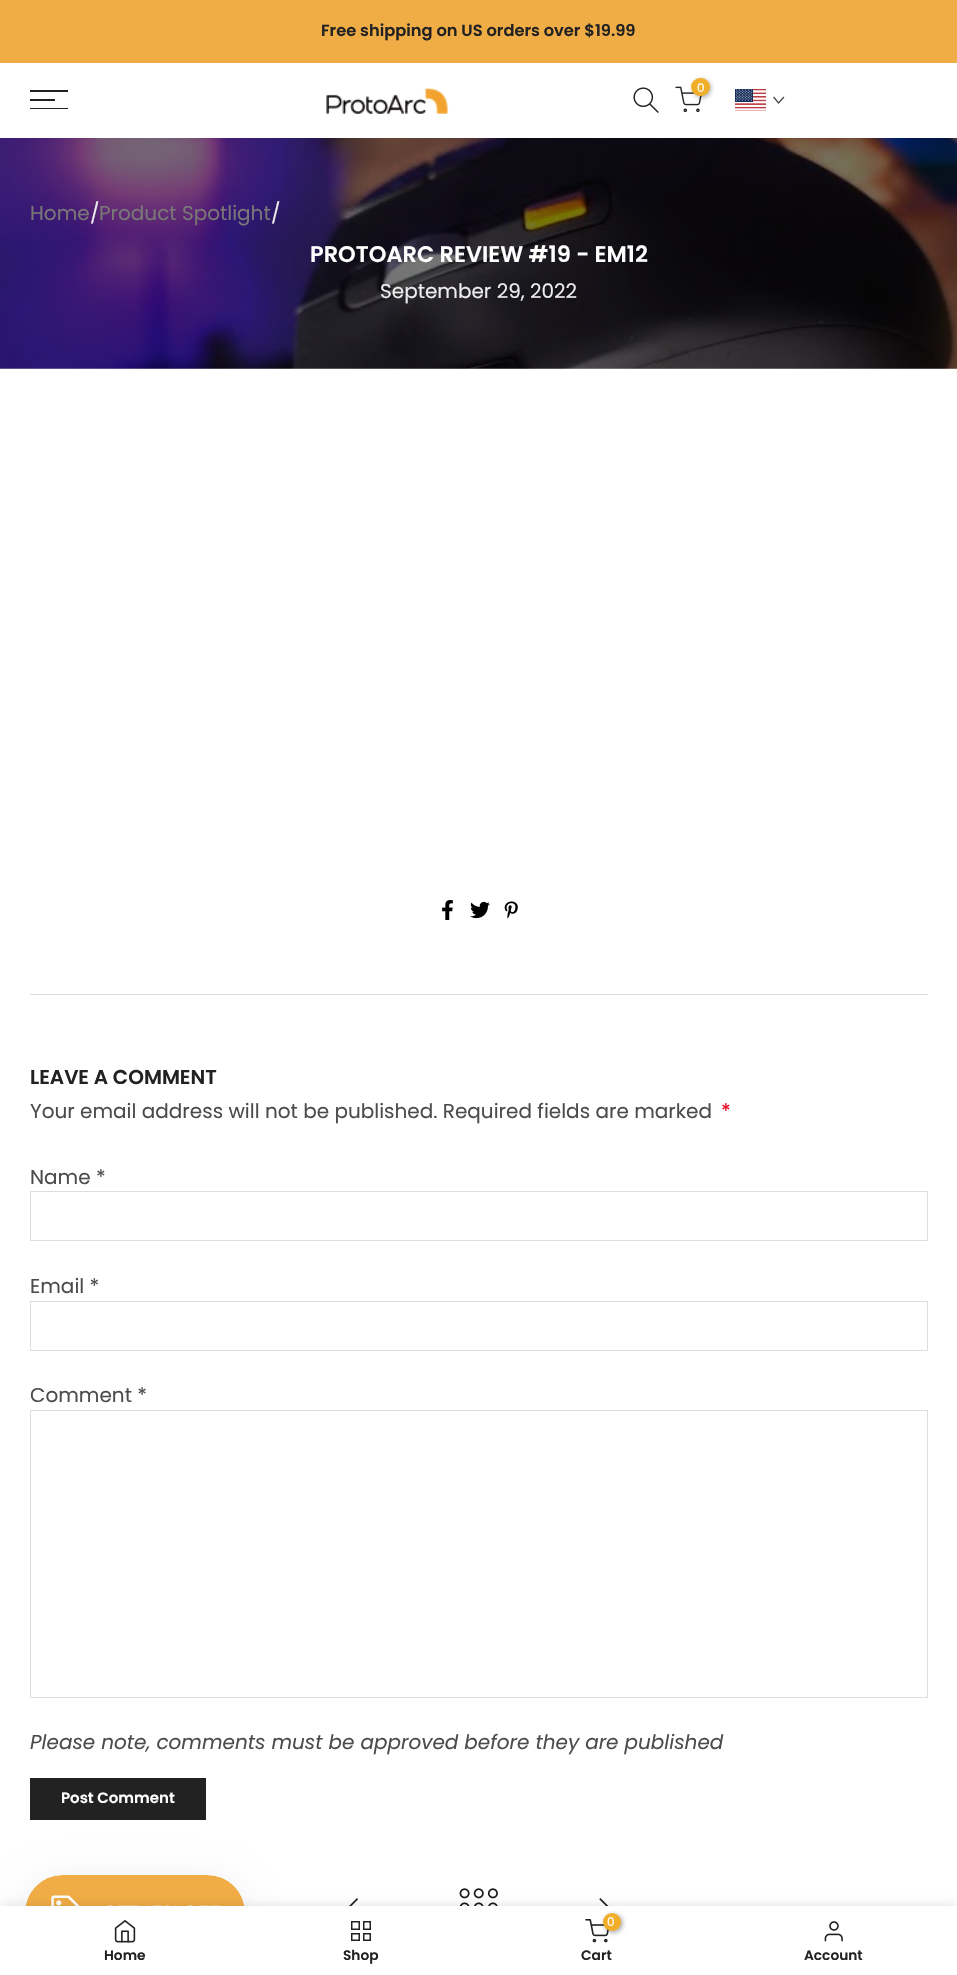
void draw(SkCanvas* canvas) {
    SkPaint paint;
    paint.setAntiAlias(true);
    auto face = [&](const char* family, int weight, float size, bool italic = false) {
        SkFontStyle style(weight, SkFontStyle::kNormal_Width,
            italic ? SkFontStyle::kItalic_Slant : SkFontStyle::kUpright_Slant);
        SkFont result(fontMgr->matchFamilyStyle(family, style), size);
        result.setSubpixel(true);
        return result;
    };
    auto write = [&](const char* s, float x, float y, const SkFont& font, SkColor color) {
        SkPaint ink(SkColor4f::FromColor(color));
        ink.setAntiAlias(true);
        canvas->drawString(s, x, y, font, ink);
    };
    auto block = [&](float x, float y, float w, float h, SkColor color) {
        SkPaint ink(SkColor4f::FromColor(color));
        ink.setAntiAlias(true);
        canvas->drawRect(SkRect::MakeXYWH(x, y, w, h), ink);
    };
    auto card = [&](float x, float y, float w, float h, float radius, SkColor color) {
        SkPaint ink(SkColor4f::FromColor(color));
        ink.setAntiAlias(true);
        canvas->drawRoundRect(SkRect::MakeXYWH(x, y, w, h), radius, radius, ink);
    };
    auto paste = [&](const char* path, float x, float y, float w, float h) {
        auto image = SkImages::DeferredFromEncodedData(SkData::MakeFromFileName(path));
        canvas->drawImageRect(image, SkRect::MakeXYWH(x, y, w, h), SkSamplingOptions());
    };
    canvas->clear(SK_ColorWHITE);
    block(0, 0, 957, 63, SkColorSetRGB(240, 173, 70));
    auto kFont1 = face("Poppins", 600, 16.25f);
    write("Free shipping on US orders over $19.99", 321, 36, kFont1, SkColorSetRGB(34, 34, 34));
    paste("pic1.png", 633, 87, 26, 26);
    paste("pic2.png", 675, 86, 27, 27);
    paint.setColor(SkColorSetARGB(77, 0, 0, 0));
    paint.setMaskFilter(SkMaskFilter::MakeBlur(kNormal_SkBlurStyle, 2));
    canvas->drawRoundRect(SkRect::MakeXYWH(693, 79, 18, 19), 9, 9, paint);
    paint.setMaskFilter(nullptr);
    card(691, 78, 19, 18, 9, SkColorSetRGB(241, 175, 41));
    auto kFont2 = face("Poppins", 400, 12);
    write("0", 697, 92, kFont2, SK_ColorWHITE);
    paste("pic3.png", 735, 89, 31, 22);
    paint.setStyle(SkPaint::kStroke_Style);
    paint.setStrokeWidth(1.3f);
    paint.setStrokeCap(SkPaint::kSquare_Cap);
    paint.setColor(SkColorSetRGB(76, 76, 76));
    canvas->drawPath(SkPathBuilder().moveTo(783.5f, 97.5f).lineTo(778.5f, 103).lineTo(774, 97.5f).detach(), paint);
    block(30, 90, 38, 2, SkColorSetRGB(34, 34, 34));
    block(30, 99, 25, 2, SkColorSetRGB(34, 34, 34));
    block(30, 108, 38, 1, SkColorSetRGB(34, 34, 34));
    paste("pic4.png", 326, 88, 123, 26);
    paste("pic5.png", 0, 138, 957, 231);
    auto kFont3 = face("Poppins", 400, 20);
    write("Home", 30, 220, kFont3, SkColorSetRGB(122, 119, 119));
    write("/", 90, 220, kFont3, SkColorSetRGB(237, 237, 237));
    write("Product Spotlight", 99, 220, kFont3, SkColorSetRGB(122, 119, 119));
    write("/", 271, 220, kFont3, SkColorSetRGB(237, 237, 237));
    auto kFont4 = face("Poppins", 600, 22.5f);
    write("PROTOARC REVIEW #19 - EM12", 310, 262, kFont4, SK_ColorWHITE);
    write("September 29, 2022", 380, 298, kFont3, SkColorSetRGB(237, 237, 237));
    paste("pic6.png", 442, 900, 11, 20);
    paste("pic7.png", 470, 901, 20, 18);
    paste("pic8.png", 504, 901, 14, 18);
    block(30, 994, 898, 1, SkColorSetRGB(221, 221, 221));
    auto kFont5 = face("Poppins", 600, 20);
    write("LEAVE A COMMENT", 30, 1084, kFont5, SkColorSetRGB(34, 34, 34));
    write("Your email address will not be published. Required fields are marked", 30, 1118, kFont3, SkColorSetRGB(76, 76, 76));
    write("*", 721, 1118, kFont3, SkColorSetRGB(235, 0, 27));
    write("Name *", 30, 1184, kFont3, SkColorSetRGB(76, 76, 76));
    paint.setStrokeWidth(1);
    paint.setStrokeCap(SkPaint::kButt_Cap);
    paint.setColor(SkColorSetRGB(221, 221, 221));
    canvas->drawRect(SkRect::MakeXYWH(30.5f, 1191.5f, 897, 49), paint);
    write("Email *", 30, 1293, kFont3, SkColorSetRGB(76, 76, 76));
    canvas->drawRect(SkRect::MakeXYWH(30.5f, 1301.5f, 897, 49), paint);
    write("Comment *", 30, 1402, kFont3, SkColorSetRGB(76, 76, 76));
    canvas->drawRect(SkRect::MakeXYWH(30.5f, 1410.5f, 897, 287), paint);
    auto kFont6 = face("Poppins", 400, 20, true);
    write("Please note, comments must be approved before they are published", 30, 1749, kFont6, SkColorSetRGB(76, 76, 76));
    block(30, 1778, 176, 42, SkColorSetRGB(34, 34, 34));
    auto kFont7 = face("Poppins", 600, 15);
    write("Post Comment", 61, 1803, kFont7, SK_ColorWHITE);
    paste("pic9.png", 349, 1898, 9, 8);
    paste("pic10.png", 459, 1888, 39, 18);
    paste("pic11.png", 599, 1898, 10, 8);
    paint.setStyle(SkPaint::kFill_Style);
    paint.setColor(SkColorSetARGB(13, 0, 0, 0));
    paint.setMaskFilter(SkMaskFilter::MakeBlur(kNormal_SkBlurStyle, 15.5f));
    canvas->drawRoundRect(SkRect::MakeXYWH(25, 1875, 220, 75), 37.5f, 37.5f, paint);
    paint.setMaskFilter(nullptr);
    paste("pic12.png", 25, 1875, 220, 31);
    paint.setColor(SkColorSetARGB(31, 0, 0, 0));
    paint.setMaskFilter(SkMaskFilter::MakeBlur(kNormal_SkBlurStyle, 5.5f));
    canvas->drawRect(SkRect::MakeXYWH(0, 1906, 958, 69), paint);
    paint.setMaskFilter(nullptr);
    block(0, 1906, 957, 69, SK_ColorWHITE);
    paste("pic13.png", 114, 1920, 22, 23);
    auto kFont8 = face("Poppins", 600, 13.75f);
    write("Home", 104, 1960, kFont8, SkColorSetRGB(34, 34, 34));
    paint.setStyle(SkPaint::kStroke_Style);
    paint.setStrokeWidth(1.5f);
    paint.setColor(SkColorSetRGB(34, 34, 34));
    canvas->drawRect(SkRect::MakeXYWH(351.75f, 1921.75f, 7.5f, 7.5f), paint);
    canvas->drawRect(SkRect::MakeXYWH(363.75f, 1921.75f, 6.5f, 7.5f), paint);
    canvas->drawRect(SkRect::MakeXYWH(351.75f, 1933.75f, 7.5f, 6.5f), paint);
    canvas->drawRect(SkRect::MakeXYWH(363.75f, 1933.75f, 6.5f, 6.5f), paint);
    write("Shop", 343, 1960, kFont8, SkColorSetRGB(34, 34, 34));
    paste("pic14.png", 585, 1919, 24, 24);
    paint.setStyle(SkPaint::kFill_Style);
    paint.setColor(SkColorSetARGB(77, 0, 0, 0));
    paint.setMaskFilter(SkMaskFilter::MakeBlur(kNormal_SkBlurStyle, 2));
    canvas->drawRoundRect(SkRect::MakeXYWH(604, 1914, 19, 19), 9.5f, 9.5f, paint);
    paint.setMaskFilter(nullptr);
    paint.setColor(SkColorSetRGB(241, 175, 41));
    canvas->drawCircle(612, 1922, 9, paint);
    write("0", 607, 1926, kFont2, SK_ColorWHITE);
    write("Cart", 581, 1960, kFont8, SkColorSetRGB(34, 34, 34));
    paste("pic15.png", 824, 1921, 19, 21);
    write("Account", 804, 1960, kFont8, SkColorSetRGB(34, 34, 34));
}
